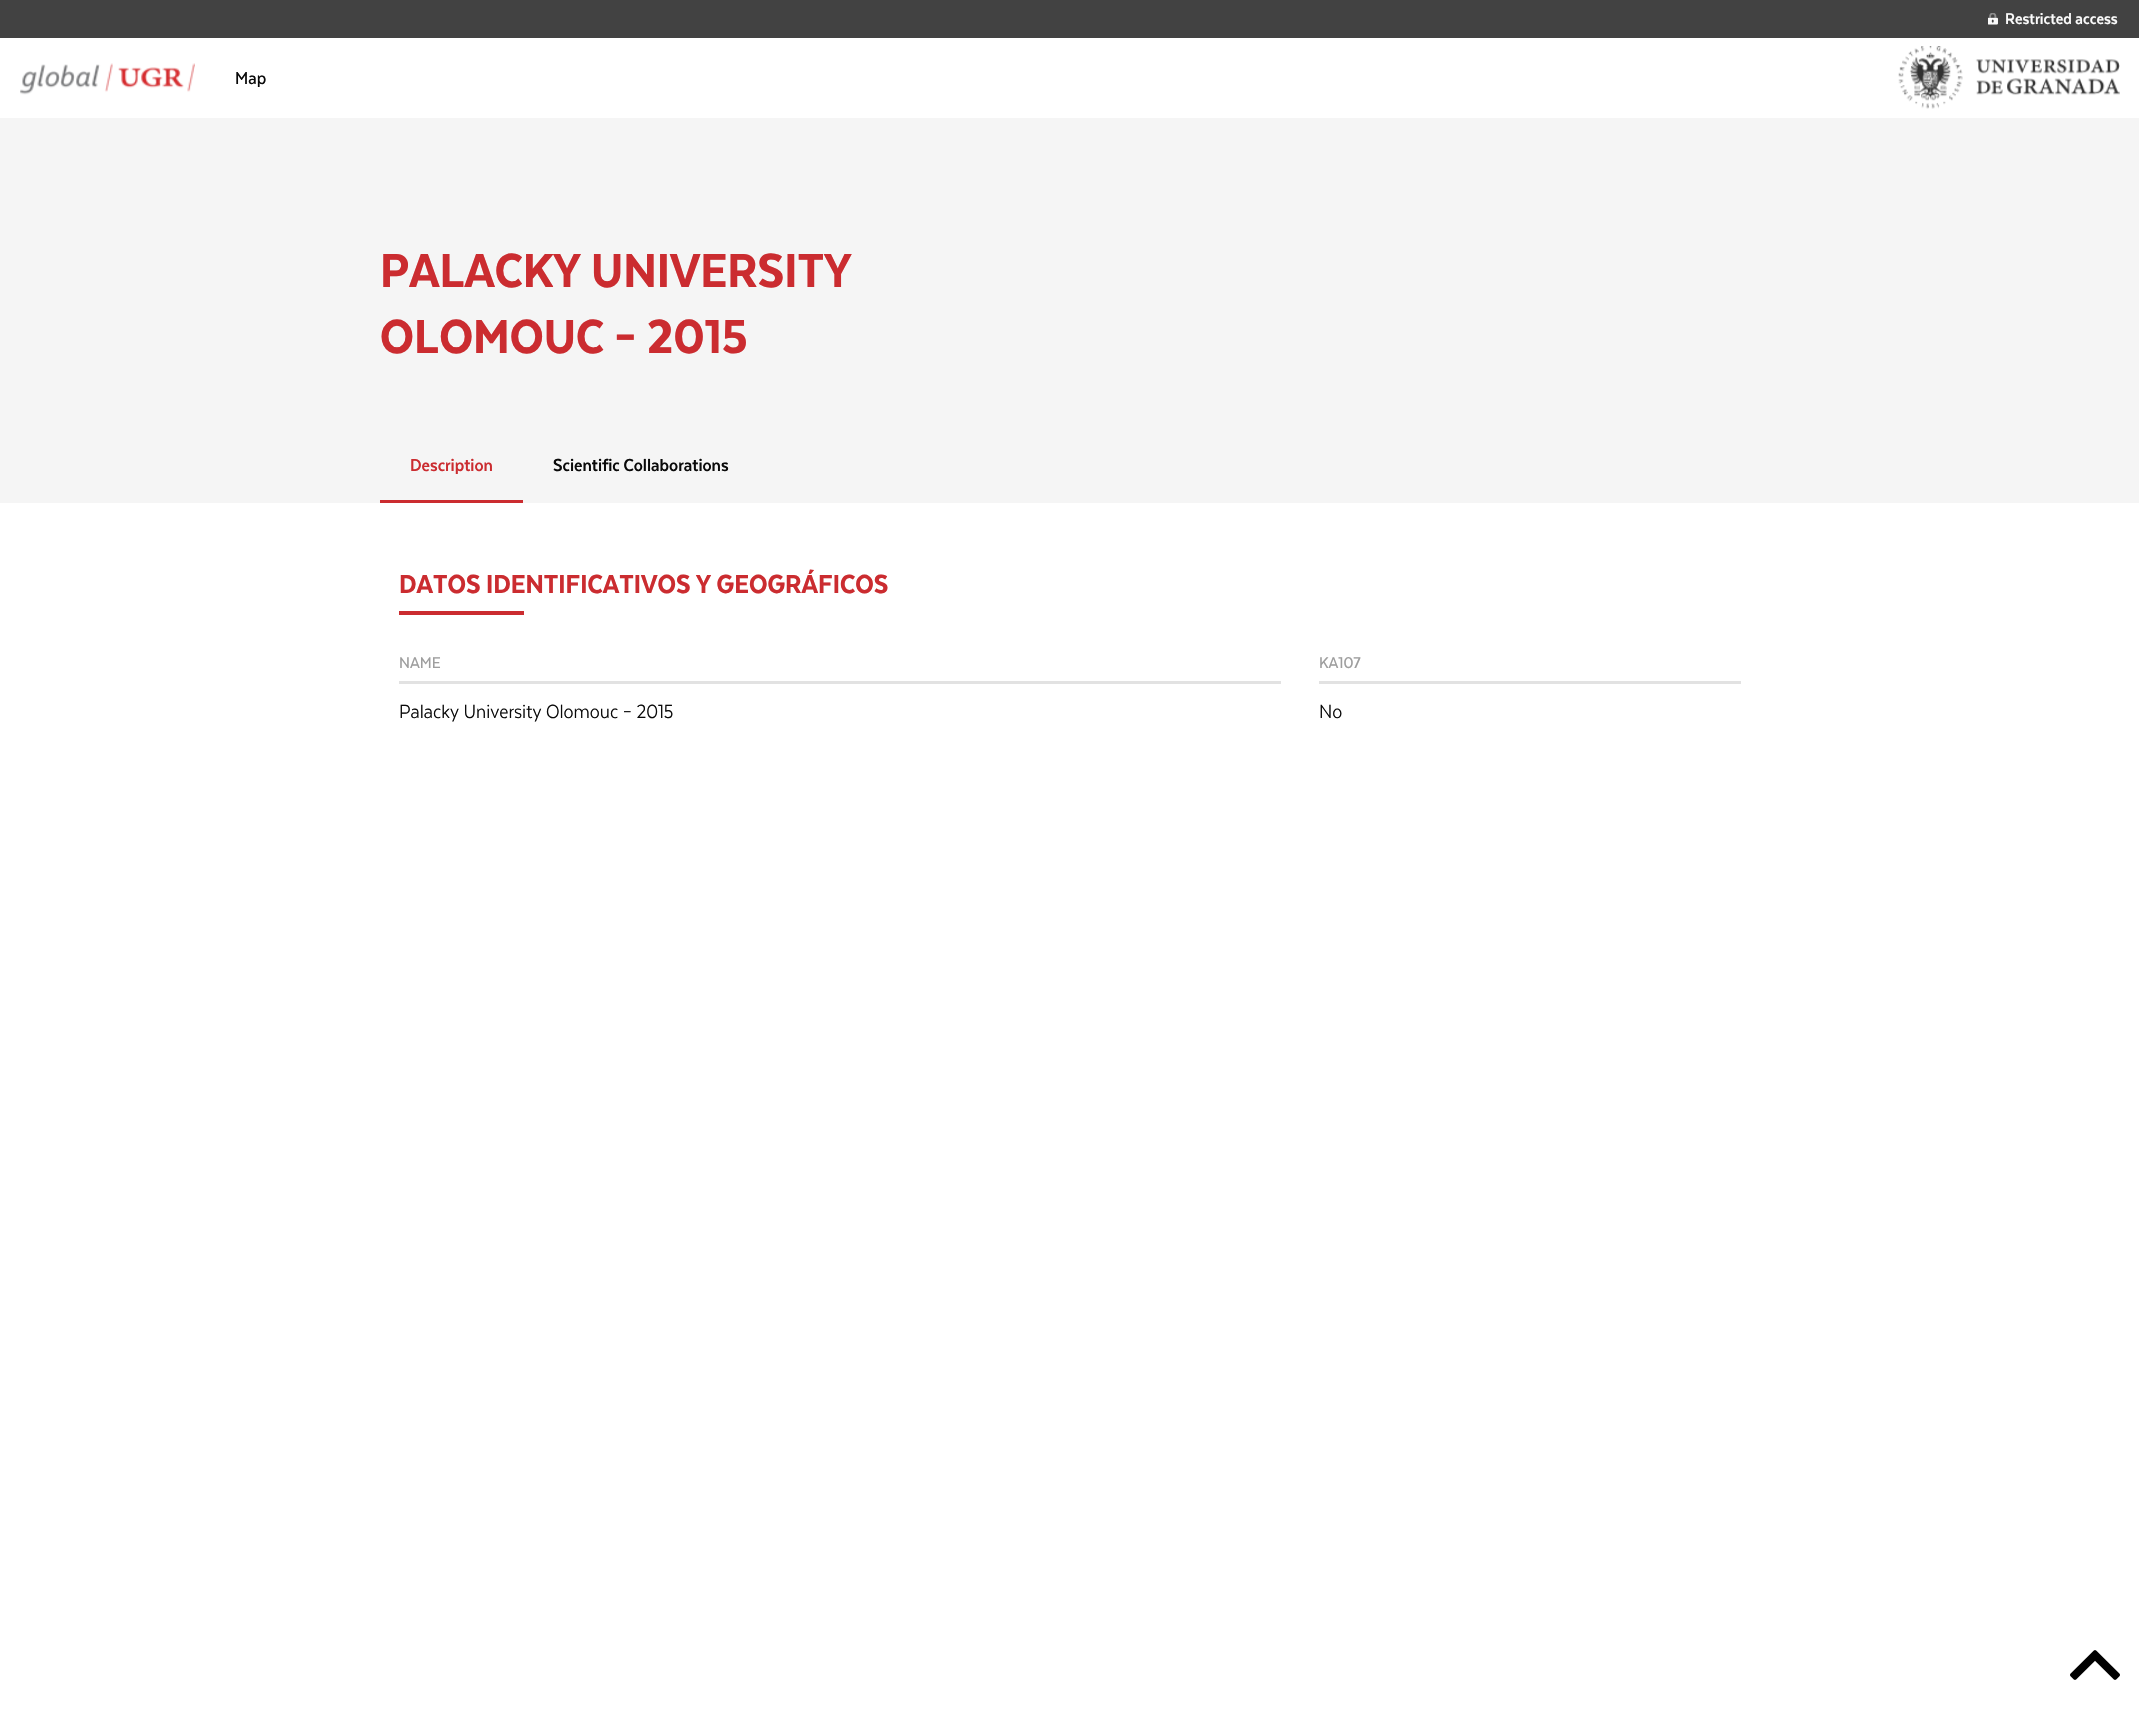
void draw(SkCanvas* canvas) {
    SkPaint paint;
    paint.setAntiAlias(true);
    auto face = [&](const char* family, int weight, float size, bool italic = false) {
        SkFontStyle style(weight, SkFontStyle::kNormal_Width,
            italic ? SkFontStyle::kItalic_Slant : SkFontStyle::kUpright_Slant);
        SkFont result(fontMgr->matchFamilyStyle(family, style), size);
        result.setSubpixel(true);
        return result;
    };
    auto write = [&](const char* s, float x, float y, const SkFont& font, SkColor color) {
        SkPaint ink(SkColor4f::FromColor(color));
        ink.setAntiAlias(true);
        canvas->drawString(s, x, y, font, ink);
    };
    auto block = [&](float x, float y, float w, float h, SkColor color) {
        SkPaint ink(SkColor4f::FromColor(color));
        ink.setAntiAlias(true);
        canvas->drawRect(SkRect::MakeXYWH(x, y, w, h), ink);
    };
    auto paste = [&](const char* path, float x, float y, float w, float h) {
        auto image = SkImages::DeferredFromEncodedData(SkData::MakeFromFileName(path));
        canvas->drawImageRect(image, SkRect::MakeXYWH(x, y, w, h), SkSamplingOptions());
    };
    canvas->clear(SK_ColorWHITE);
    block(0, 0, 2139, 38, SkColorSetRGB(66, 66, 66));
    paste("pic1.png", 1988, 13, 10, 12);
    auto kFont1 = face("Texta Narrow", 700, 18);
    write("Restricted access", 2005, 24, kFont1, SkColorSetRGB(251, 251, 251));
    paste("pic2.png", 20, 63, 175, 32);
    auto kFont2 = face("Texta Narrow", 500, 20);
    write("Map", 235, 84, kFont2, SkColorSetRGB(10, 10, 10));
    paste("pic3.png", 1898, 46, 222, 63);
    block(0, 118, 2139, 385, SkColorSetRGB(245, 245, 245));
    auto kFont3 = face("Texta Narrow", 900, 55);
    write("PALACKY UNIVERSITY", 380, 287, kFont3, SkColorSetRGB(203, 44, 48));
    write("OLOMOUC – 2015", 380, 353, kFont3, SkColorSetRGB(203, 44, 48));
    block(380, 500, 143, 3, SkColorSetRGB(203, 44, 48));
    auto kFont4 = face("Texta Narrow", 700, 20);
    write("Description", 410, 471, kFont4, SkColorSetRGB(203, 44, 48));
    write("Scientific Collaborations", 553, 471, kFont4, SkColorSetRGB(10, 10, 10));
    auto kFont5 = face("Texta Narrow", 900, 30);
    write("DATOS IDENTIFICATIVOS Y GEOGRÁFICOS", 399, 593, kFont5, SkColorSetRGB(203, 44, 48));
    block(399, 611, 125, 4, SkColorSetRGB(203, 44, 48));
    block(399, 681, 882, 3, SkColorSetRGB(226, 226, 226));
    auto kFont6 = face("Texta Narrow", 500, 18);
    write("NAME", 399, 668, kFont6, SkColorSetRGB(158, 158, 158));
    auto kFont7 = face("Texta Narrow", 400, 22);
    write("Palacky University Olomouc – 2015", 399, 718, kFont7, SkColorSetRGB(10, 10, 10));
    block(1319, 681, 422, 3, SkColorSetRGB(226, 226, 226));
    write("KA107", 1319, 668, kFont6, SkColorSetRGB(158, 158, 158));
    write("No", 1319, 718, kFont7, SkColorSetRGB(10, 10, 10));
    paste("pic4.png", 2070, 1650, 50, 30);
}
